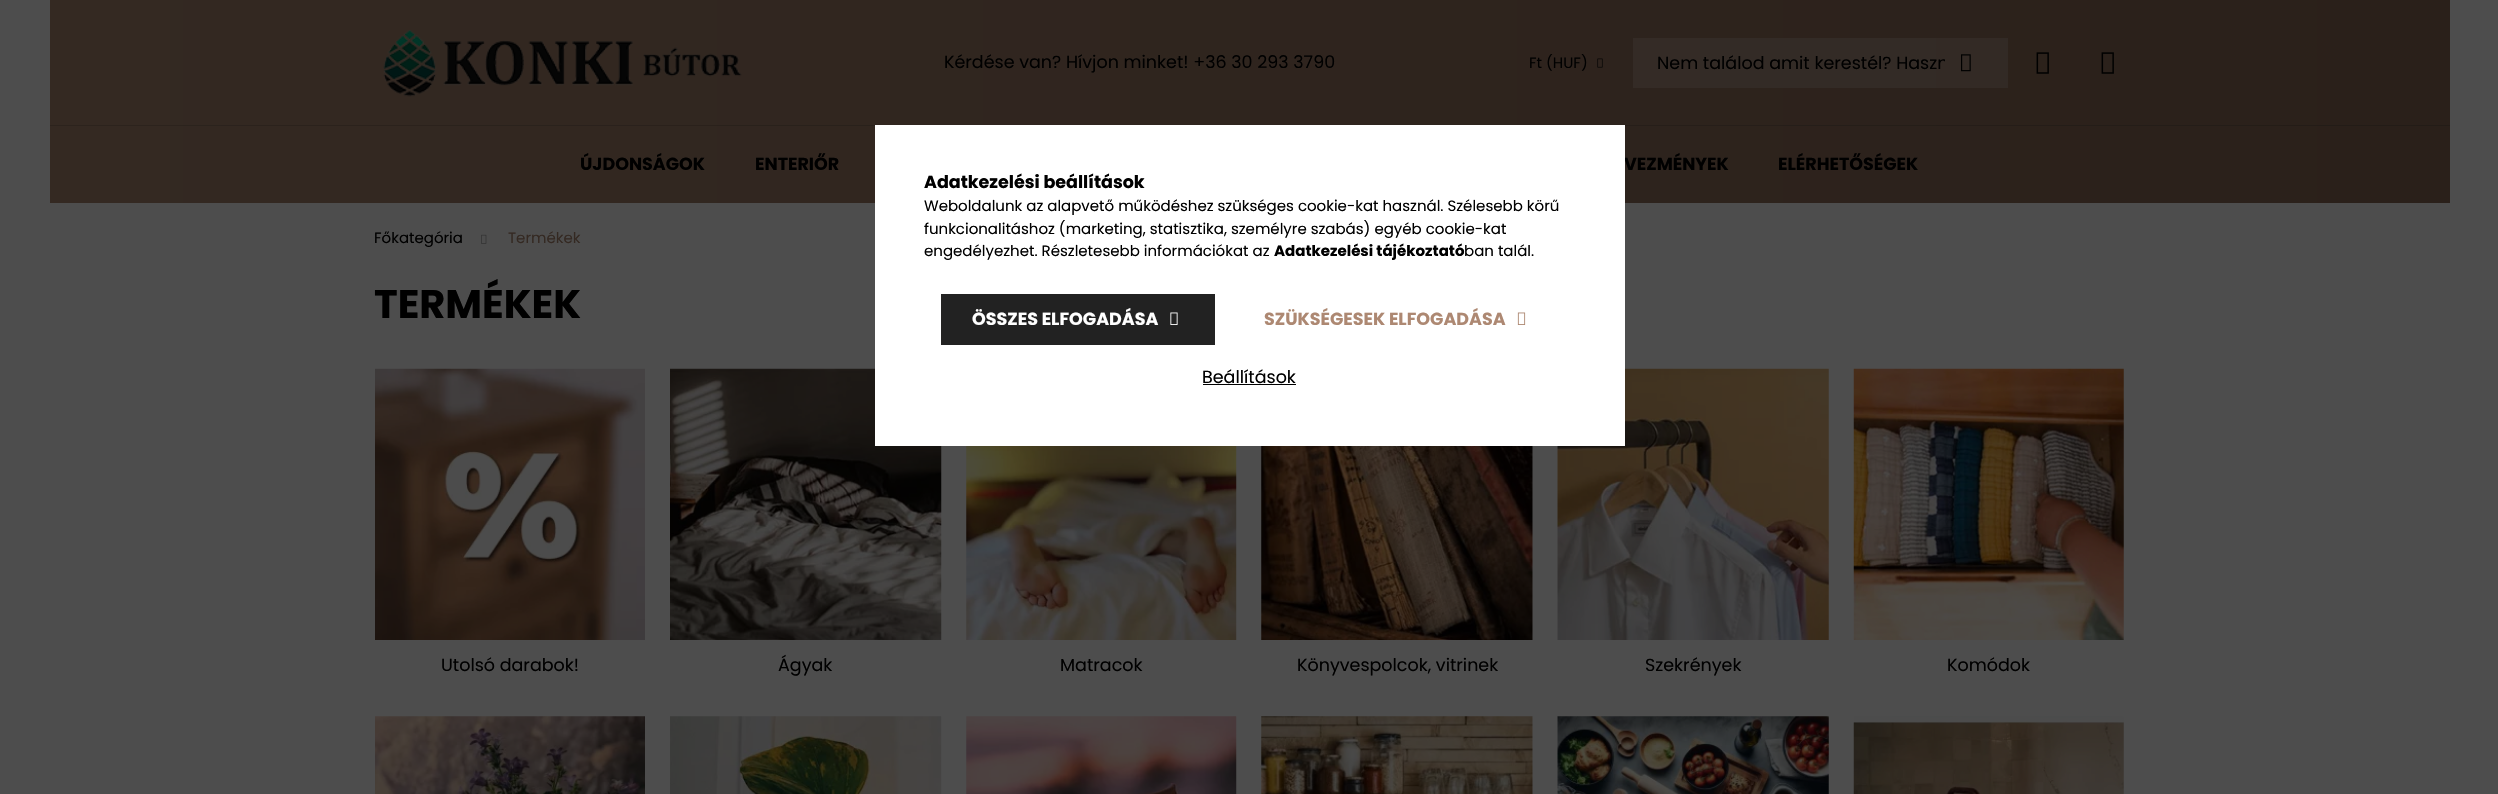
void draw(SkCanvas* canvas) {
    SkPaint paint;
    paint.setAntiAlias(true);
    auto face = [&](const char* family, int weight, float size, bool italic = false) {
        SkFontStyle style(weight, SkFontStyle::kNormal_Width,
            italic ? SkFontStyle::kItalic_Slant : SkFontStyle::kUpright_Slant);
        SkFont result(fontMgr->matchFamilyStyle(family, style), size);
        result.setSubpixel(true);
        return result;
    };
    auto write = [&](const char* s, float x, float y, const SkFont& font, SkColor color) {
        SkPaint ink(SkColor4f::FromColor(color));
        ink.setAntiAlias(true);
        canvas->drawString(s, x, y, font, ink);
    };
    auto block = [&](float x, float y, float w, float h, SkColor color) {
        SkPaint ink(SkColor4f::FromColor(color));
        ink.setAntiAlias(true);
        canvas->drawRect(SkRect::MakeXYWH(x, y, w, h), ink);
    };
    auto paste = [&](const char* path, float x, float y, float w, float h) {
        auto image = SkImages::DeferredFromEncodedData(SkData::MakeFromFileName(path));
        canvas->drawImageRect(image, SkRect::MakeXYWH(x, y, w, h), SkSamplingOptions());
    };
    canvas->clear(SkColorSetRGB(77, 77, 77));
    {
        const SkColor colors[] = {SkColorSetRGB(52, 41, 34), SkColorSetRGB(42, 32, 26)};
        const float stops[] = {0, 1};
        const SkPoint ends[] = {{50, 63}, {2450, 62}};
        paint.setShader(SkGradientShader::MakeLinear(ends, colors, stops, 2, SkTileMode::kClamp));
        paint.setAlpha(255);
    }
    canvas->drawRect(SkRect::MakeXYWH(50, 0, 2400, 125), paint);
    {
        const SkColor colors[] = {SkColorSetRGB(57, 48, 43), SkColorSetRGB(49, 41, 36)};
        const float stops[] = {0, 1};
        const SkPoint ends[] = {{50, 63}, {2450, 62}};
        paint.setShader(SkGradientShader::MakeLinear(ends, colors, stops, 2, SkTileMode::kClamp));
        paint.setAlpha(255);
    }
    canvas->drawRect(SkRect::MakeXYWH(1633, 38, 375, 50), paint);
    paste("pic1.png", 383, 30, 359, 67);
    auto kFont1 = face("Poppins", 400, 17.5f);
    write("Kérdése van? Hívjon minket! +36 30 293 3790", 944, 68, kFont1, SK_ColorBLACK);
    auto kFont2 = face("Poppins", 400, 15);
    write("Ft (HUF)", 1529, 68, kFont2, SK_ColorBLACK);
    paste("pic2.png", 1597, 58, 6, 10);
    canvas->save();
    canvas->clipRect(SkRect::MakeXYWH(1658, 51, 287, 27));
    write("Nem találod amit kerestél? Haszn", 1657, 69, kFont1, SK_ColorBLACK);
    canvas->restore();
    paste("pic3.png", 1961, 54, 10, 18);
    paste("pic4.png", 2036, 52, 13, 22);
    paste("pic5.png", 2101, 52, 13, 22);
    {
        const SkColor colors[] = {SkColorSetRGB(52, 41, 34), SkColorSetRGB(42, 32, 26)};
        const float stops[] = {0, 1};
        const SkPoint ends[] = {{50, 164}, {2450, 164}};
        paint.setShader(SkGradientShader::MakeLinear(ends, colors, stops, 2, SkTileMode::kClamp));
        paint.setAlpha(255);
    }
    canvas->drawRect(SkRect::MakeXYWH(50, 126, 2400, 77), paint);
    {
        const SkColor colors[] = {SkColorSetRGB(44, 35, 29), SkColorSetRGB(35, 28, 23)};
        const float stops[] = {0, 1};
        const SkPoint ends[] = {{50, 164}, {2450, 164}};
        paint.setShader(SkGradientShader::MakeLinear(ends, colors, stops, 2, SkTileMode::kClamp));
        paint.setAlpha(255);
    }
    canvas->drawRect(SkRect::MakeXYWH(50, 125, 2400, 1), paint);
    auto kFont3 = face("Poppins", 700, 17.5f);
    write("ÚJDONSÁGOK", 580, 170, kFont3, SK_ColorBLACK);
    write("ENTERIŐR", 755, 170, kFont3, SK_ColorBLACK);
    write("VEZMÉNYEK", 1624, 170, kFont3, SK_ColorBLACK);
    write("ELÉRHETŐSÉGEK", 1778, 170, kFont3, SK_ColorBLACK);
    write("Főkategória", 374, 243, kFont2, SK_ColorBLACK);
    paste("pic6.png", 481, 234, 6, 10);
    write("Termékek", 508, 243, kFont2, SkColorSetRGB(52, 41, 34));
    auto kFont4 = face("Poppins", 700, 40);
    write("TERMÉKEK", 374, 318, kFont4, SK_ColorBLACK);
    paste("pic7.png", 375, 368, 270, 272);
    write("Utolsó darabok!", 441, 671, kFont1, SK_ColorBLACK);
    paste("pic8.png", 670, 368, 272, 272);
    write("Ágyak", 778, 671, kFont1, SK_ColorBLACK);
    paste("pic9.png", 966, 446, 271, 194);
    write("Matracok", 1060, 671, kFont1, SK_ColorBLACK);
    paste("pic10.png", 1261, 446, 272, 194);
    write("Könyvespolcok, vitrinek", 1297, 671, kFont1, SK_ColorBLACK);
    paste("pic11.png", 1557, 368, 272, 272);
    write("Szekrények", 1645, 671, kFont1, SK_ColorBLACK);
    paste("pic12.png", 1853, 368, 271, 272);
    write("Komódok", 1947, 671, kFont1, SK_ColorBLACK);
    paste("pic13.png", 375, 716, 270, 78);
    paste("pic14.png", 670, 716, 272, 78);
    paste("pic15.png", 966, 716, 271, 78);
    paste("pic16.png", 1261, 716, 272, 78);
    paste("pic17.png", 1557, 716, 272, 78);
    paste("pic18.png", 1853, 716, 271, 78);
    block(875, 125, 750, 321, SK_ColorWHITE);
    write("Adatkezelési beállítások", 924, 188, kFont3, SK_ColorBLACK);
    write("Weboldalunk az alapvető működéshez szükséges cookie-kat használ. Szélesebb körű", 924, 211, kFont2, SK_ColorBLACK);
    write("funkcionalitáshoz (marketing, statisztika, személyre szabás) egyéb cookie-kat", 924, 234, kFont2, SK_ColorBLACK);
    write("engedélyezhet. Részletesebb információkat az", 924, 256, kFont2, SK_ColorBLACK);
    auto kFont5 = face("Poppins", 700, 15);
    write("Adatkezelési tájékoztató", 1274, 256, kFont5, SK_ColorBLACK);
    write("ban talál.", 1464, 256, kFont2, SK_ColorBLACK);
    {
        const SkColor colors[] = {SkColorSetRGB(173, 136, 114), SkColorSetRGB(139, 106, 87), SkColorSetRGB(34, 34, 34), SkColorSetRGB(34, 34, 34)};
        const float stops[] = {0, 0.33f, 0.67f, 1};
        const SkPoint ends[] = {{394, 319}, {1215, 319}};
        paint.setShader(SkGradientShader::MakeLinear(ends, colors, stops, 4, SkTileMode::kClamp));
        paint.setAlpha(255);
    }
    canvas->drawRect(SkRect::MakeXYWH(941, 294, 274, 51), paint);
    write("ÖSSZES ELFOGADÁSA", 972, 325, kFont3, SK_ColorWHITE);
    paste("pic19.png", 1170, 312, 8, 13);
    write("SZÜKSÉGESEK ELFOGADÁSA", 1264, 325, kFont3, SkColorSetRGB(173, 136, 114));
    paste("pic20.png", 1517, 312, 9, 13);
    write("Beállítások", 1202, 383, kFont1, SK_ColorBLACK);
    block(1203, 384, 93, 1, SK_ColorBLACK);
}
